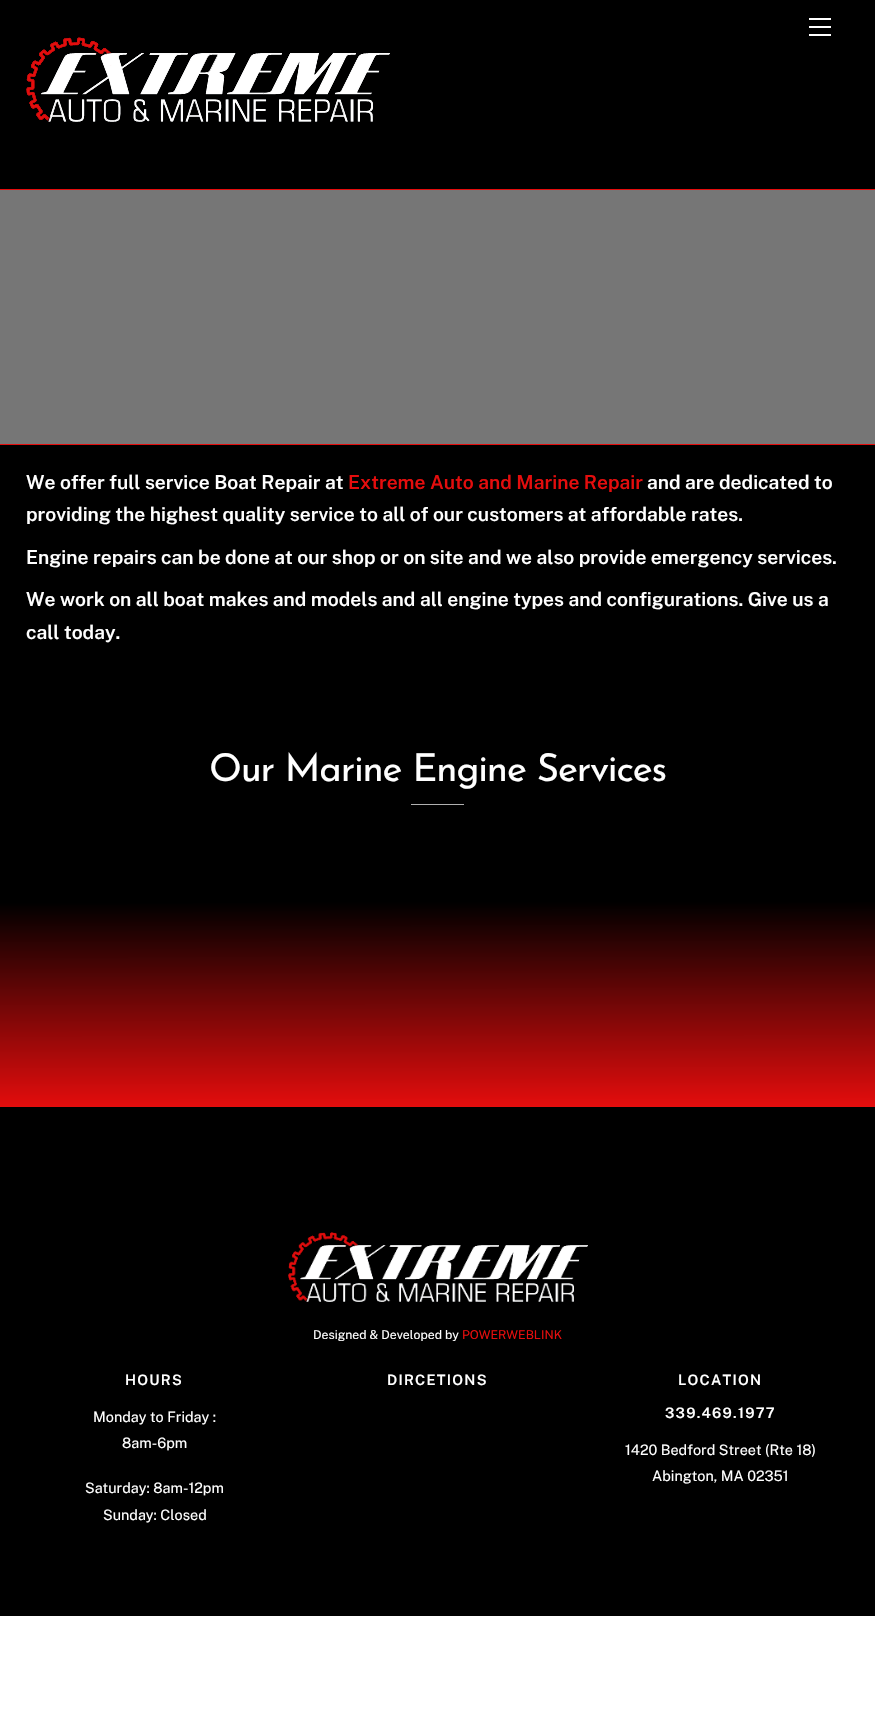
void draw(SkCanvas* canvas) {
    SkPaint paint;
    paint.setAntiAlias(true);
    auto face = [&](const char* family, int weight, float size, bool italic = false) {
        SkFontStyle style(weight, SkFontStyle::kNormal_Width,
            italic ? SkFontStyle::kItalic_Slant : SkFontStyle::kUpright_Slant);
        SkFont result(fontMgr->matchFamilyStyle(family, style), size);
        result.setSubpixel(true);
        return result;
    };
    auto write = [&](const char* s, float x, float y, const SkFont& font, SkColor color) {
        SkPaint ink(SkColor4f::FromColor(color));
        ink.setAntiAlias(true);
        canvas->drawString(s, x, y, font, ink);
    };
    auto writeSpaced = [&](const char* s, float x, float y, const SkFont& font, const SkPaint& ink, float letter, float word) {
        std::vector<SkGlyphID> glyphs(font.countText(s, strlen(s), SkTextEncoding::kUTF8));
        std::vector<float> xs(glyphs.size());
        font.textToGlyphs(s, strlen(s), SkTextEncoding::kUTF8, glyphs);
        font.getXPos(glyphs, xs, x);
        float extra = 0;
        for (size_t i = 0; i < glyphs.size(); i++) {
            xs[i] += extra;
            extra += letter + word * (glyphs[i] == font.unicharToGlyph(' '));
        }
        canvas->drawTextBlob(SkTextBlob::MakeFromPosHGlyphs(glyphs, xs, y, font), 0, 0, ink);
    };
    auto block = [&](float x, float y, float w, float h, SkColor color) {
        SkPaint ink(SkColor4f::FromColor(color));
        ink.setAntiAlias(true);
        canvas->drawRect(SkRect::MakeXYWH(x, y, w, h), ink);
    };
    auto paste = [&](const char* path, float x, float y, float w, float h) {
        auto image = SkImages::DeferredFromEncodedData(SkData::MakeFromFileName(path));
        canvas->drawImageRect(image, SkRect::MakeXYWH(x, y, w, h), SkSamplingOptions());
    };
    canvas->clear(SK_ColorWHITE);
    block(0, 0, 875, 189, SK_ColorBLACK);
    block(809, 34, 22, 2, SK_ColorWHITE);
    block(809, 18, 22, 2, SK_ColorWHITE);
    block(809, 26, 22, 2, SK_ColorWHITE);
    paste("pic1.png", 26, 37, 364, 85);
    block(0, 189, 875, 1, SkColorSetRGB(228, 13, 13));
    block(0, 190, 875, 254, SkColorSetRGB(118, 118, 118));
    {
        const SkColor colors[] = {SK_ColorBLACK, SkColorSetRGB(228, 13, 13)};
        const float stops[] = {0.69f, 1};
        const SkPoint ends[] = {{437, -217}, {438, 445}};
        paint.setShader(SkGradientShader::MakeLinear(ends, colors, stops, 2, SkTileMode::kClamp));
        paint.setAlpha(255);
    }
    canvas->drawRect(SkRect::MakeXYWH(0, 444, 875, 1), paint);
    {
        const SkColor colors[] = {SK_ColorBLACK, SkColorSetRGB(228, 13, 13)};
        const float stops[] = {0.69f, 1};
        const SkPoint ends[] = {{437, 445}, {438, 1107}};
        paint.setShader(SkGradientShader::MakeLinear(ends, colors, stops, 2, SkTileMode::kClamp));
        paint.setAlpha(255);
    }
    canvas->drawRect(SkRect::MakeXYWH(0, 445, 875, 662), paint);
    auto kFont1 = face("Public Sans", 600, 19.2f);
    write("We offer full service Boat Repair at", 26, 489, kFont1, SK_ColorWHITE);
    write("Extreme Auto and Marine Repair", 348, 489, kFont1, SkColorSetRGB(228, 13, 13));
    write("and are dedicated to", 647, 489, kFont1, SK_ColorWHITE);
    write("providing the highest quality service to all of our customers at affordable rates.", 26, 521, kFont1, SK_ColorWHITE);
    write("Engine repairs can be done at our shop or on site and we also provide emergency services.", 26, 564, kFont1, SK_ColorWHITE);
    write("We work on all boat makes and models and all engine types and configurations. Give us a", 26, 606, kFont1, SK_ColorWHITE);
    write("call today.", 26, 639, kFont1, SK_ColorWHITE);
    auto kFont2 = face("Josefin Sans", 100, 38.4f);
    paint.setShader(nullptr);
    paint.setColor(SK_ColorWHITE);
    writeSpaced("Our Marine Engine Services", 209, 781, kFont2, paint, -1.15f, 0);
    block(411, 804, 53, 1, SkColorSetRGB(176, 176, 176));
    block(0, 1107, 875, 509, SK_ColorBLACK);
    paste("pic2.png", 288, 1232, 300, 70);
    auto kFont3 = face("Public Sans", 400, 12.25f);
    write("Designed & Developed by", 313, 1339, kFont3, SK_ColorWHITE);
    write("POWERWEBLINK", 462, 1339, kFont3, SkColorSetRGB(228, 13, 13));
    auto kFont4 = face("Public Sans", 600, 14.4f);
    writeSpaced("HOURS", 125, 1385, kFont4, paint, 1.25f, 0);
    auto kFont5 = face("Public Sans", 400, 14.4f);
    write("Monday to Friday :", 93, 1422, kFont5, SK_ColorWHITE);
    write("8am-6pm", 122, 1448, kFont5, SK_ColorWHITE);
    write("Saturday: 8am-12pm", 85, 1493, kFont5, SK_ColorWHITE);
    write("Sunday: Closed", 103, 1520, kFont5, SK_ColorWHITE);
    writeSpaced("DIRCETIONS", 387, 1385, kFont4, paint, 1.25f, 0);
    writeSpaced("LOCATION", 678, 1385, kFont4, paint, 1.25f, 0);
    writeSpaced("339.469.1977", 665, 1418, kFont4, paint, 1.25f, 0);
    write("1420 Bedford Street (Rte 18)", 625, 1455, kFont5, SK_ColorWHITE);
    write("Abington, MA 02351", 652, 1481, kFont5, SK_ColorWHITE);
}
